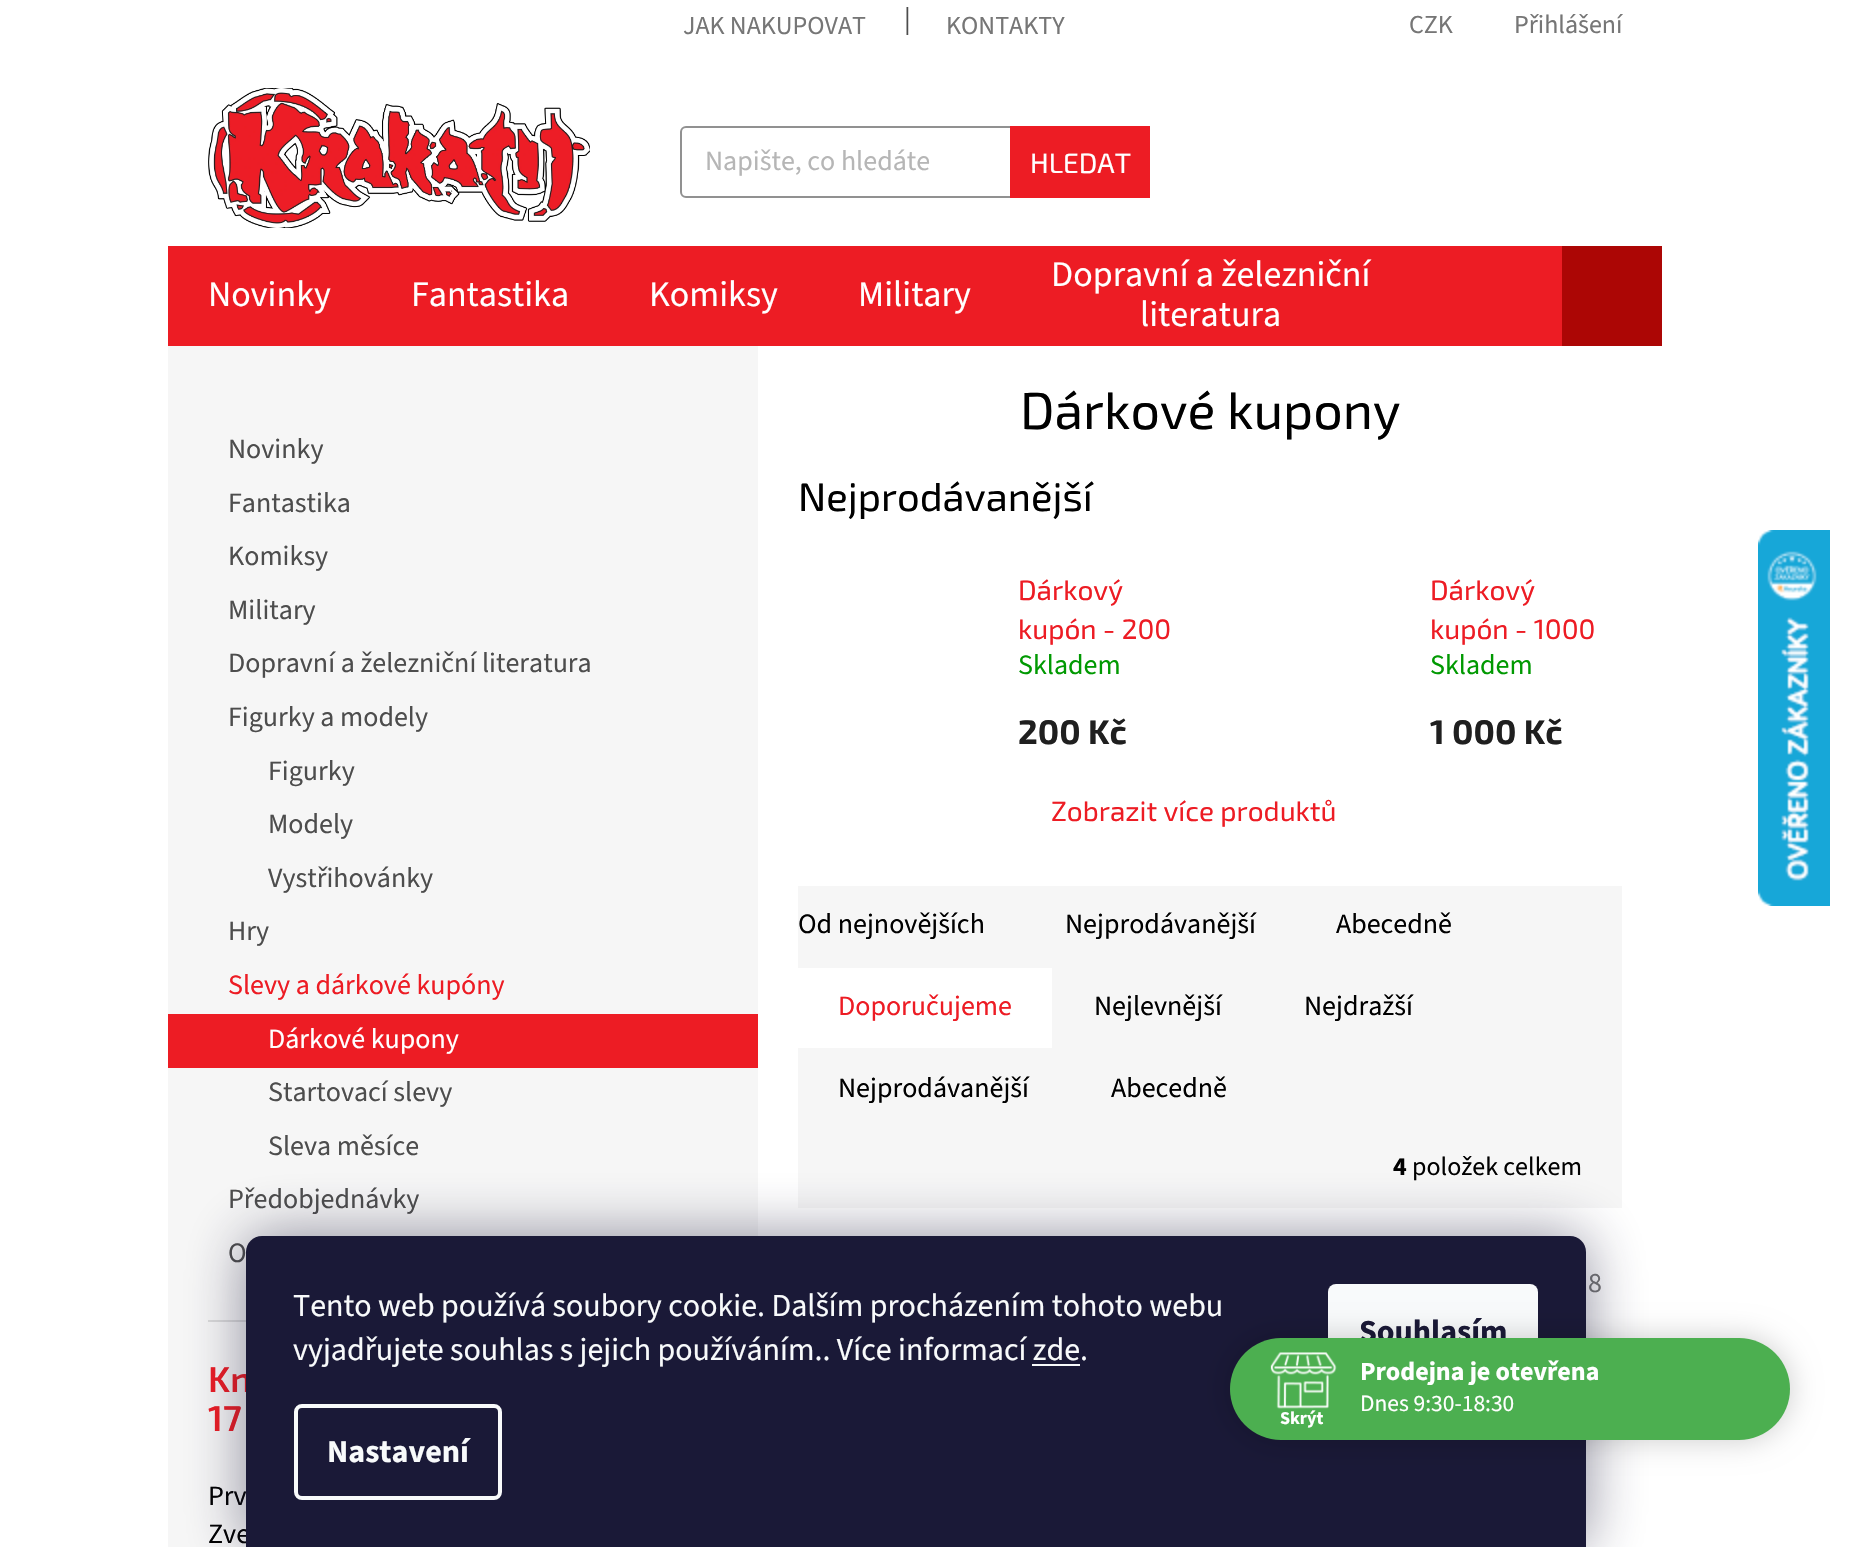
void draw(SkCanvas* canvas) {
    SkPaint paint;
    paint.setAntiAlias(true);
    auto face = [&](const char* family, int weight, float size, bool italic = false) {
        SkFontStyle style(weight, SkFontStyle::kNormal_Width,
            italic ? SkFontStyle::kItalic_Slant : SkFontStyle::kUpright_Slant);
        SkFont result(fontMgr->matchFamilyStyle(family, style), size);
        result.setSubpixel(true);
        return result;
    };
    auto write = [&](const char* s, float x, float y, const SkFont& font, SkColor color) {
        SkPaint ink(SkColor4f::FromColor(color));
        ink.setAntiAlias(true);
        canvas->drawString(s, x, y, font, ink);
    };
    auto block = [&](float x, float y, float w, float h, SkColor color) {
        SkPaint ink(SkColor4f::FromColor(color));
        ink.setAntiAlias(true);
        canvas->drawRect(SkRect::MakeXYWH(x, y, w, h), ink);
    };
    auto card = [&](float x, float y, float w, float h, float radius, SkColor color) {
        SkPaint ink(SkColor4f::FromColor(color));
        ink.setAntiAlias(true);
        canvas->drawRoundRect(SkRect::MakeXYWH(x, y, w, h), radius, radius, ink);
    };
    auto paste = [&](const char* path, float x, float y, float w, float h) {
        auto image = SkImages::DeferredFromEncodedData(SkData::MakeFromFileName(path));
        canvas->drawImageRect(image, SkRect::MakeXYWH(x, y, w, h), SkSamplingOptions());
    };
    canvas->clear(SK_ColorWHITE);
    auto kFont1 = face("Source Sans 3", 400, 26);
    write("JAK NAKUPOVAT", 683, 34, kFont1, SkColorSetRGB(118, 118, 118));
    auto kFont2 = face("Source Sans 3", 400, 28);
    write("|", 904, 28, kFont2, SkColorSetRGB(77, 77, 77));
    write("KONTAKTY", 946, 34, kFont1, SkColorSetRGB(118, 118, 118));
    write("CZK", 1409, 33, kFont1, SkColorSetRGB(118, 118, 118));
    write("Přihlášení", 1514, 33, kFont1, SkColorSetRGB(118, 118, 118));
    paste("pic1.png", 208, 88, 382, 140);
    paint.setStyle(SkPaint::kStroke_Style);
    paint.setStrokeWidth(2);
    paint.setColor(SkColorSetRGB(145, 145, 145));
    canvas->drawRoundRect(SkRect::MakeXYWH(681, 127, 468, 70), 5, 5, paint);
    write("Napište, co hledáte", 705, 170, kFont2, SkColorSetRGB(182, 182, 182));
    block(1010, 126, 140, 72, SkColorSetRGB(237, 28, 36));
    auto kFont3 = face("Exo 2", 400, 28);
    write("HLEDAT", 1030, 173, kFont3, SK_ColorWHITE);
    block(168, 246, 1394, 100, SkColorSetRGB(237, 28, 36));
    auto kFont4 = face("Source Sans 3", 400, 36);
    write("Novinky", 208, 306, kFont4, SK_ColorWHITE);
    write("Fantastika", 411, 306, kFont4, SK_ColorWHITE);
    write("Komiksy", 649, 306, kFont4, SK_ColorWHITE);
    write("Military", 858, 306, kFont4, SK_ColorWHITE);
    write("Dopravní a železniční", 1051, 286, kFont4, SK_ColorWHITE);
    write("literatura", 1140, 326, kFont4, SK_ColorWHITE);
    block(1562, 246, 100, 100, SkColorSetRGB(172, 6, 5));
    block(168, 346, 590, 1201, SkColorSetRGB(246, 246, 246));
    block(208, 1320, 38, 2, SkColorSetRGB(218, 218, 218));
    write("Novinky", 228, 458, kFont2, SkColorSetRGB(77, 77, 77));
    write("Fantastika", 228, 512, kFont2, SkColorSetRGB(77, 77, 77));
    write("Komiksy", 228, 565, kFont2, SkColorSetRGB(77, 77, 77));
    write("Military", 228, 619, kFont2, SkColorSetRGB(77, 77, 77));
    write("Dopravní a železniční literatura", 228, 672, kFont2, SkColorSetRGB(77, 77, 77));
    write("Figurky a modely", 228, 726, kFont2, SkColorSetRGB(77, 77, 77));
    write("Figurky", 268, 780, kFont2, SkColorSetRGB(77, 77, 77));
    write("Modely", 268, 833, kFont2, SkColorSetRGB(77, 77, 77));
    write("Vystřihovánky", 268, 887, kFont2, SkColorSetRGB(77, 77, 77));
    write("Hry", 228, 940, kFont2, SkColorSetRGB(77, 77, 77));
    write("Slevy a dárkové kupóny", 228, 994, kFont2, SkColorSetRGB(237, 28, 36));
    block(168, 1014, 590, 54, SkColorSetRGB(237, 28, 36));
    write("Dárkové kupony", 268, 1048, kFont2, SK_ColorWHITE);
    write("Startovací slevy", 268, 1101, kFont2, SkColorSetRGB(77, 77, 77));
    write("Sleva měsíce", 268, 1155, kFont2, SkColorSetRGB(77, 77, 77));
    write("Předobjednávky", 228, 1208, kFont2, SkColorSetRGB(77, 77, 77));
    write("O", 228, 1262, kFont2, SkColorSetRGB(77, 77, 77));
    auto kFont5 = face("Exo 2", 600, 36);
    write("Kn", 208, 1392, kFont5, SkColorSetRGB(237, 28, 36));
    write("17", 208, 1431, kFont5, SkColorSetRGB(237, 28, 36));
    write("Prv", 208, 1505, kFont2, SK_ColorBLACK);
    write("Zve", 208, 1543, kFont2, SK_ColorBLACK);
    auto kFont6 = face("Exo 2", 400, 52);
    write("Dárkové kupony", 1020, 429, kFont6, SK_ColorBLACK);
    auto kFont7 = face("Exo 2", 400, 40);
    write("Nejprodávanější", 798, 511, kFont7, SK_ColorBLACK);
    write("Dárkový", 1018, 600, kFont3, SkColorSetRGB(237, 28, 36));
    write("kupón - 200", 1018, 639, kFont3, SkColorSetRGB(237, 28, 36));
    write("Skladem", 1018, 674, kFont2, SkColorSetRGB(0, 153, 1));
    auto kFont8 = face("Exo 2", 700, 34);
    write("200 Kč", 1018, 744, kFont8, SkColorSetRGB(31, 31, 31));
    write("Dárkový", 1430, 600, kFont3, SkColorSetRGB(237, 28, 36));
    write("kupón - 1000", 1430, 639, kFont3, SkColorSetRGB(237, 28, 36));
    write("Skladem", 1430, 674, kFont2, SkColorSetRGB(0, 153, 1));
    write("1 000 Kč", 1430, 744, kFont8, SkColorSetRGB(31, 31, 31));
    write("Zobrazit více produktů", 1051, 821, kFont3, SkColorSetRGB(237, 28, 36));
    block(798, 886, 824, 322, SkColorSetRGB(246, 246, 246));
    write("Od nejnovějších", 798, 933, kFont2, SK_ColorBLACK);
    write("Nejprodávanější", 1065, 933, kFont2, SK_ColorBLACK);
    write("Abecedně", 1336, 933, kFont2, SK_ColorBLACK);
    block(798, 968, 254, 80, SK_ColorWHITE);
    write("Doporučujeme", 838, 1015, kFont2, SkColorSetRGB(237, 28, 36));
    write("Nejlevnější", 1094, 1015, kFont2, SK_ColorBLACK);
    write("Nejdražší", 1304, 1015, kFont2, SK_ColorBLACK);
    write("Nejprodávanější", 838, 1097, kFont2, SK_ColorBLACK);
    write("Abecedně", 1111, 1097, kFont2, SK_ColorBLACK);
    auto kFont9 = face("Source Sans 3", 700, 26);
    write("4", 1393, 1175, kFont9, SK_ColorBLACK);
    write("položek celkem", 1412, 1175, kFont1, SK_ColorBLACK);
    write("8", 1588, 1292, kFont2, SkColorSetRGB(118, 118, 118));
    paste("pic2.png", 1758, 530, 72, 376);
    paint.setStyle(SkPaint::kFill_Style);
    paint.setColor(SkColorSetARGB(128, 27, 25, 57));
    paint.setMaskFilter(SkMaskFilter::MakeBlur(kNormal_SkBlurStyle, 30));
    canvas->drawRoundRect(SkRect::MakeXYWH(246, 1236, 1340, 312), 16, 16, paint);
    paint.setMaskFilter(nullptr);
    paint.setColor(SkColorSetRGB(26, 25, 55));
    canvas->drawPath(SkPathBuilder().moveTo(262, 1236).lineTo(1570, 1236).cubicTo(1579, 1236, 1586, 1243, 1586, 1252).lineTo(1586, 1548).lineTo(246, 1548).lineTo(246, 1252).cubicTo(246, 1243, 253, 1236, 262, 1236).close().detach(), paint);
    auto kFont10 = face("Source Sans 3", 400, 32);
    write("Tento web používá soubory cookie. Dalším procházením tohoto webu", 293, 1316, kFont10, SkColorSetRGB(248, 250, 251));
    write("vyjadřujete souhlas s jejich používáním.. Více informací zde.", 293, 1360, kFont10, SkColorSetRGB(248, 250, 251));
    block(1032, 1364, 48, 2, SkColorSetRGB(248, 250, 251));
    paint.setStyle(SkPaint::kStroke_Style);
    paint.setStrokeWidth(4);
    paint.setColor(SkColorSetRGB(248, 250, 251));
    canvas->drawRoundRect(SkRect::MakeXYWH(296, 1406, 204, 92), 6, 6, paint);
    auto kFont11 = face("Source Sans 3", 700, 32);
    write("Nastavení", 327, 1462, kFont11, SkColorSetRGB(248, 250, 251));
    card(1328, 1284, 210, 96, 8, SkColorSetRGB(248, 250, 251));
    write("Souhlasím", 1359, 1342, kFont11, SkColorSetRGB(26, 25, 55));
    paint.setStyle(SkPaint::kFill_Style);
    paint.setColor(SkColorSetARGB(51, 0, 0, 0));
    paint.setMaskFilter(SkMaskFilter::MakeBlur(kNormal_SkBlurStyle, 15));
    canvas->drawRoundRect(SkRect::MakeXYWH(1230, 1338, 560, 102), 51, 51, paint);
    paint.setMaskFilter(nullptr);
    card(1230, 1338, 560, 102, 51, SkColorSetRGB(76, 175, 80));
    write("Prodejna je otevřena", 1360, 1380, kFont9, SK_ColorWHITE);
    auto kFont12 = face("Source Sans 3", 400, 23.5f);
    write("Dnes 9:30-18:30", 1360, 1411, kFont12, SK_ColorWHITE);
    paste("pic3.png", 1270, 1352, 67, 57);
    auto kFont13 = face("Source Sans 3", 700, 18);
    write("Skrýt", 1280, 1424, kFont13, SK_ColorWHITE);
}
